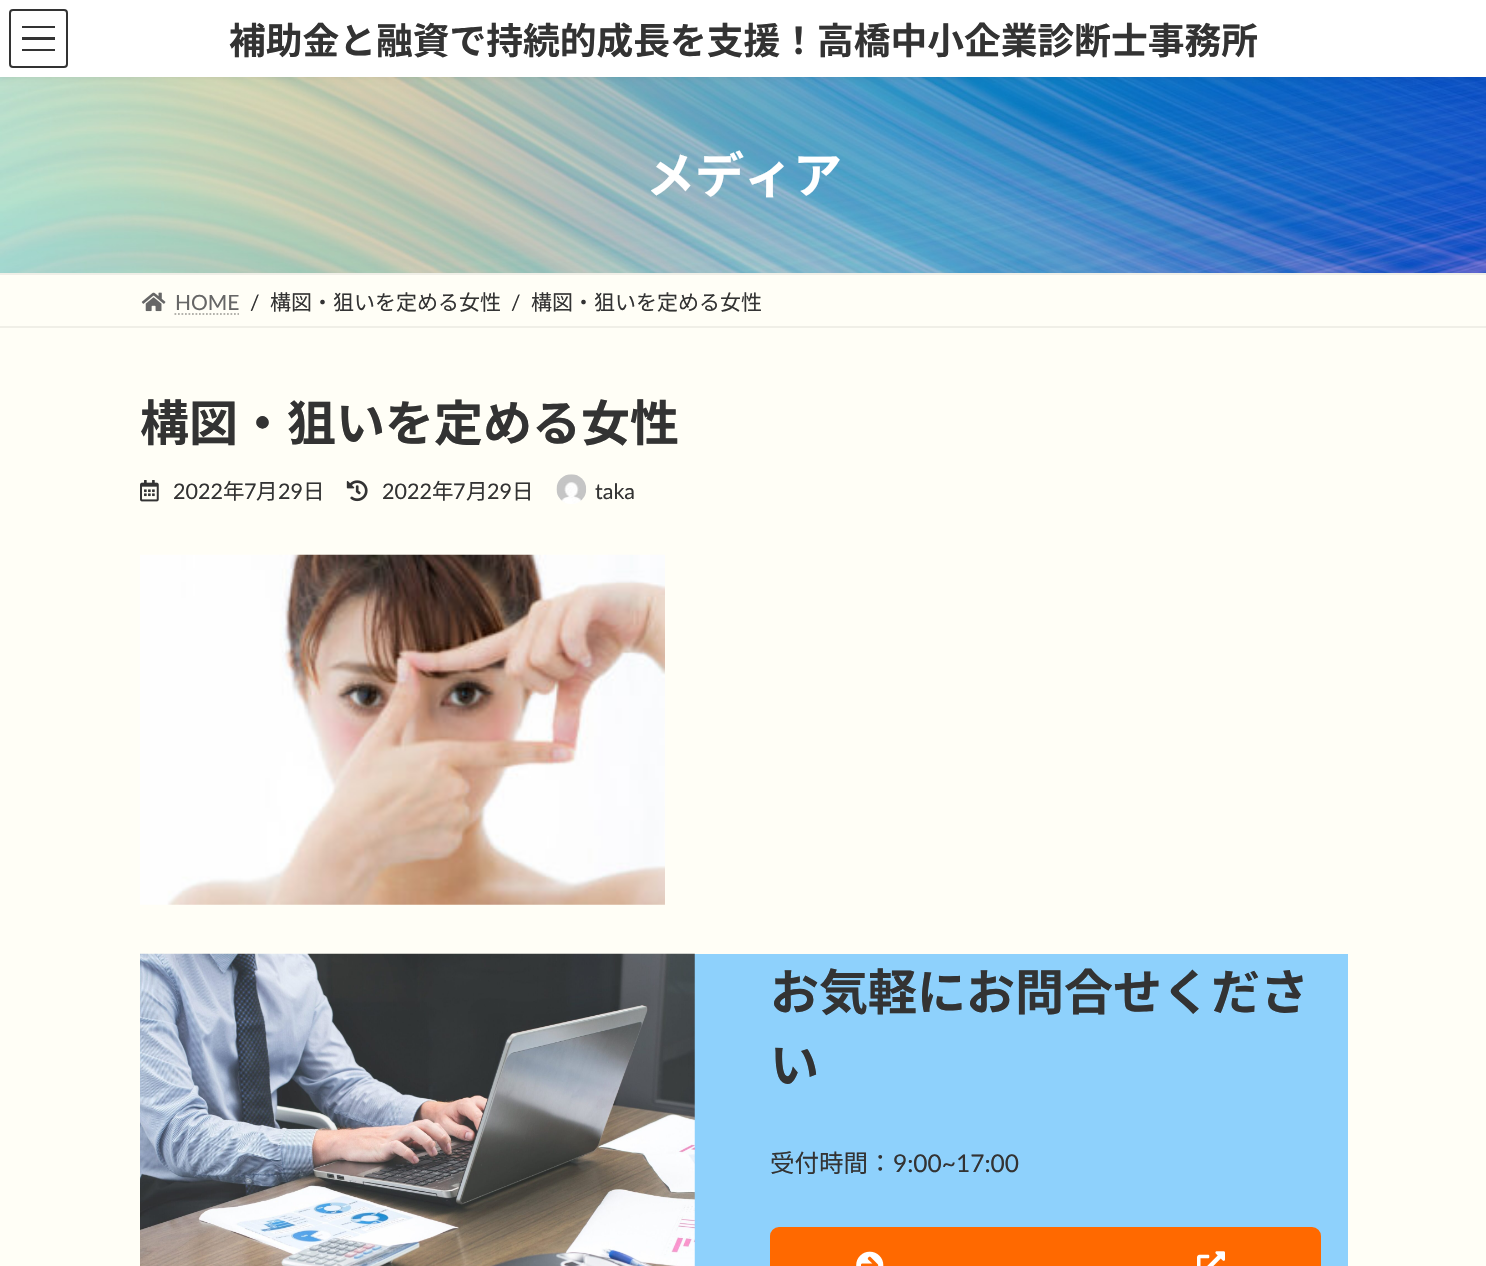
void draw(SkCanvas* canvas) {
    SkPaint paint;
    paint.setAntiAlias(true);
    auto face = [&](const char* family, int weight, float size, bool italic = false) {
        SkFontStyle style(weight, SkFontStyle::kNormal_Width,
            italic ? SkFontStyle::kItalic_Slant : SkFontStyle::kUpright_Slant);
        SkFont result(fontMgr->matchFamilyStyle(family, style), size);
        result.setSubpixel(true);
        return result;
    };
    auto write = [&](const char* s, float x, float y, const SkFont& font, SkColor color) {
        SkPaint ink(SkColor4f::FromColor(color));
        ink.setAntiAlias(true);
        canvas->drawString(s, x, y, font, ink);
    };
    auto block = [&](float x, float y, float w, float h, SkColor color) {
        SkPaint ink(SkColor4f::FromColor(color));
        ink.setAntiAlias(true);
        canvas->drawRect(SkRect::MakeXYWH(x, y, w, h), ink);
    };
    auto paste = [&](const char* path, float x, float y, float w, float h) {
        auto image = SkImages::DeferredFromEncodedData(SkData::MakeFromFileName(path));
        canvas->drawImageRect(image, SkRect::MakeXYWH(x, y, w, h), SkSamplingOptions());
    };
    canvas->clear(SkColorSetRGB(255, 254, 246));
    paste("pic1.png", 0, 77, 1486, 196);
    paint.setColor(SkColorSetARGB(13, 0, 0, 0));
    paint.setMaskFilter(SkMaskFilter::MakeBlur(kNormal_SkBlurStyle, 2.5f));
    canvas->drawRect(SkRect::MakeXYWH(0, 2, 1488, 77), paint);
    paint.setMaskFilter(nullptr);
    block(0, 0, 1486, 77, SK_ColorWHITE);
    block(22, 26, 33, 2, SkColorSetRGB(51, 51, 51));
    block(22, 37, 33, 3, SkColorSetRGB(51, 51, 51));
    block(22, 49, 33, 2, SkColorSetRGB(51, 51, 51));
    paint.setStyle(SkPaint::kStroke_Style);
    paint.setStrokeWidth(2);
    paint.setColor(SkColorSetRGB(51, 51, 51));
    canvas->drawRoundRect(SkRect::MakeXYWH(10, 10, 57, 57), 3, 3, paint);
    auto kFont1 = face("Noto Sans JP", 700, 36.75f);
    write("補助金と融資で持続的成長を支援！高橋中小企業診断士事務所", 229, 54, kFont1, SkColorSetRGB(51, 51, 51));
    auto kFont2 = face("Noto Sans JP", 700, 49);
    write("メディア", 646, 193, kFont2, SK_ColorWHITE);
    block(0, 273, 1486, 2, SkColorSetRGB(240, 239, 231));
    block(0, 326, 1486, 2, SkColorSetRGB(240, 239, 231));
    paste("pic2.png", 141, 292, 25, 20);
    auto kFont3 = face("Lato", 400, 21);
    write("HOME", 175, 310, kFont3, SkColorSetRGB(102, 102, 102));
    paint.setStrokeWidth(1.8f);
    paint.setColor(SkColorSetRGB(179, 178, 172));
    paint.setPathEffect(SkDashPathEffect::Make({{1.75f, 1.75f}}, 0));
    canvas->drawPath(SkPathBuilder().moveTo(174.5f, 314).lineTo(239, 314).detach(), paint);
    paint.setPathEffect(nullptr);
    write("/", 250, 310, kFont3, SkColorSetRGB(51, 51, 51));
    auto kFont4 = face("Noto Sans JP", 400, 21);
    write("構図・狙いを定める女性", 270, 310, kFont4, SkColorSetRGB(51, 51, 51));
    write("/", 511, 310, kFont3, SkColorSetRGB(51, 51, 51));
    write("構図・狙いを定める女性", 531, 310, kFont4, SkColorSetRGB(51, 51, 51));
    write("構図・狙いを定める女性", 140, 441, kFont2, SkColorSetRGB(51, 51, 51));
    paste("pic3.png", 140, 480, 19, 22);
    auto kFont5 = face("Lato", 400, 21.5f);
    write("2022", 173, 499, kFont5, SkColorSetRGB(51, 51, 51));
    auto kFont6 = face("Noto Sans JP", 400, 21.5f);
    write("年", 223, 499, kFont6, SkColorSetRGB(51, 51, 51));
    write("7", 244, 499, kFont5, SkColorSetRGB(51, 51, 51));
    write("月", 256, 499, kFont6, SkColorSetRGB(51, 51, 51));
    write("29", 278, 499, kFont5, SkColorSetRGB(51, 51, 51));
    write("日", 303, 499, kFont6, SkColorSetRGB(51, 51, 51));
    paste("pic4.png", 346, 480, 22, 22);
    write("2022", 382, 499, kFont5, SkColorSetRGB(51, 51, 51));
    write("年", 432, 499, kFont6, SkColorSetRGB(51, 51, 51));
    write("7", 453, 499, kFont5, SkColorSetRGB(51, 51, 51));
    write("月", 466, 499, kFont6, SkColorSetRGB(51, 51, 51));
    write("29", 487, 499, kFont5, SkColorSetRGB(51, 51, 51));
    write("日", 512, 499, kFont6, SkColorSetRGB(51, 51, 51));
    paste("pic5.png", 556, 474, 31, 30);
    write("taka", 595, 499, kFont5, SkColorSetRGB(51, 51, 51));
    paste("pic6.png", 140, 554, 525, 351);
    block(694, 954, 654, 312, SkColorSetRGB(142, 209, 252));
    paste("pic7.png", 140, 953, 555, 313);
    write("お気軽にお問合せくださ", 770, 1010, kFont2, SkColorSetRGB(51, 51, 51));
    write("い", 770, 1083, kFont2, SkColorSetRGB(51, 51, 51));
    auto kFont7 = face("Noto Sans JP", 400, 24.5f);
    write("受付時間：", 770, 1172, kFont7, SkColorSetRGB(51, 51, 51));
    auto kFont8 = face("Lato", 400, 24.5f);
    write("9:00~17:00", 893, 1172, kFont8, SkColorSetRGB(51, 51, 51));
    paint.setStyle(SkPaint::kFill_Style);
    paint.setColor(SkColorSetRGB(255, 105, 0));
    canvas->drawRoundRect(SkRect::MakeXYWH(771, 1228, 549, 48), 8, 8, paint);
    paint.setStyle(SkPaint::kStroke_Style);
    paint.setStrokeWidth(2);
    canvas->drawRoundRect(SkRect::MakeXYWH(771, 1228, 549, 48), 8, 8, paint);
    paste("pic8.png", 856, 1251, 28, 15);
    paste("pic9.png", 1197, 1251, 28, 15);
}
